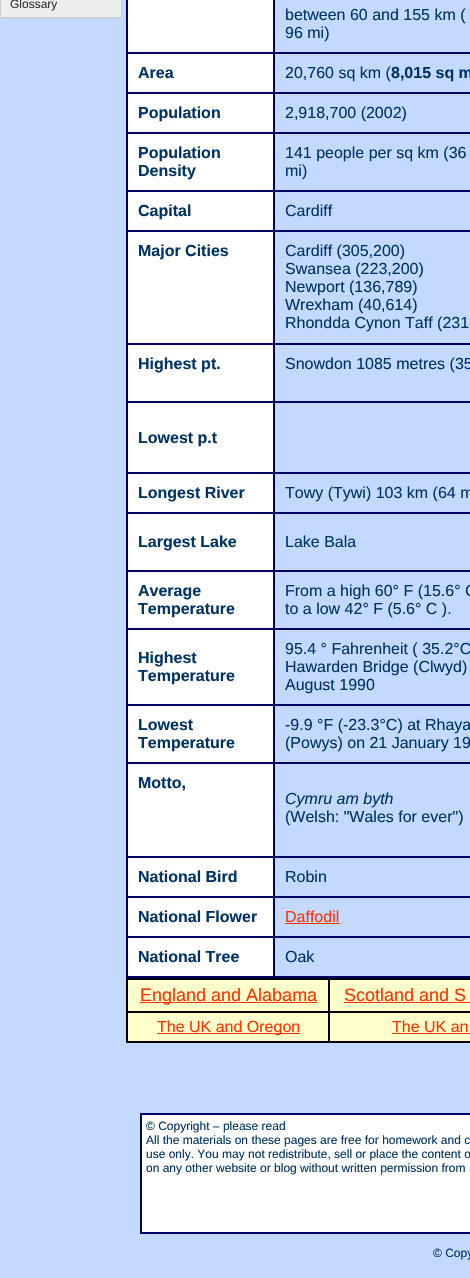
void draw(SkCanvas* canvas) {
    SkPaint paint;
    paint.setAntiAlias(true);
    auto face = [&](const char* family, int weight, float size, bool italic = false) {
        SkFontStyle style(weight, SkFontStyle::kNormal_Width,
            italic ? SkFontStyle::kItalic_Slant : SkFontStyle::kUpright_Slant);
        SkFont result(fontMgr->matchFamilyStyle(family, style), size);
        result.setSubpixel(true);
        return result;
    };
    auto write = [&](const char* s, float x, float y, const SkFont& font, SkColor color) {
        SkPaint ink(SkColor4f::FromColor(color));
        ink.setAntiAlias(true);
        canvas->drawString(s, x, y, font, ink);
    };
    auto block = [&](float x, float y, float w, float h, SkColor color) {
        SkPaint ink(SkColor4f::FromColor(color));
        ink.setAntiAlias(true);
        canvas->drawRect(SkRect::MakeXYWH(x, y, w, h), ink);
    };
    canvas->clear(SkColorSetRGB(195, 217, 255));
    paint.setStyle(SkPaint::kStroke_Style);
    paint.setStrokeWidth(1);
    paint.setColor(SkColorSetRGB(204, 204, 204));
    canvas->drawRect(SkRect::MakeXYWH(0.5f, -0.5f, 121, 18), paint);
    block(1, 0, 120, 17, SkColorSetRGB(238, 238, 238));
    auto kFont1 = face("Liberation Sans", 400, 12);
    write("Glossary", 10, 8, kFont1, SkColorSetRGB(51, 51, 51));
    paint.setColor(SkColorSetRGB(0, 0, 102));
    canvas->drawRect(SkRect::MakeXYWH(126.5f, -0.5f, 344, 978), paint);
    paint.setStyle(SkPaint::kFill_Style);
    paint.setColor(SK_ColorWHITE);
    canvas->drawRect(SkRect::MakeXYWH(127.5f, -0.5f, 146, 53), paint);
    paint.setStyle(SkPaint::kStroke_Style);
    paint.setColor(SkColorSetRGB(0, 0, 102));
    canvas->drawRect(SkRect::MakeXYWH(127.5f, -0.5f, 146, 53), paint);
    canvas->drawRect(SkRect::MakeXYWH(274.5f, -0.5f, 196, 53), paint);
    auto kFont2 = face("Liberation Sans", 400, 16);
    write("between 60 and 155 km (", 285, 20, kFont2, SkColorSetRGB(0, 51, 102));
    write("96 mi)", 285, 38, kFont2, SkColorSetRGB(0, 51, 102));
    paint.setStyle(SkPaint::kFill_Style);
    paint.setColor(SK_ColorWHITE);
    canvas->drawRect(SkRect::MakeXYWH(127.5f, 53.5f, 146, 39), paint);
    paint.setStyle(SkPaint::kStroke_Style);
    paint.setColor(SkColorSetRGB(0, 0, 102));
    canvas->drawRect(SkRect::MakeXYWH(127.5f, 53.5f, 146, 39), paint);
    auto kFont3 = face("Liberation Sans", 700, 16);
    write("Area", 138, 78, kFont3, SkColorSetRGB(0, 51, 102));
    canvas->drawRect(SkRect::MakeXYWH(274.5f, 53.5f, 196, 39), paint);
    write("20,760 sq km (", 285, 78, kFont2, SkColorSetRGB(0, 51, 102));
    write("8,015 sq m", 391, 78, kFont3, SkColorSetRGB(0, 51, 102));
    paint.setStyle(SkPaint::kFill_Style);
    paint.setColor(SK_ColorWHITE);
    canvas->drawRect(SkRect::MakeXYWH(127.5f, 93.5f, 146, 39), paint);
    paint.setStyle(SkPaint::kStroke_Style);
    paint.setColor(SkColorSetRGB(0, 0, 102));
    canvas->drawRect(SkRect::MakeXYWH(127.5f, 93.5f, 146, 39), paint);
    write("Population", 138, 118, kFont3, SkColorSetRGB(0, 51, 102));
    canvas->drawRect(SkRect::MakeXYWH(274.5f, 93.5f, 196, 39), paint);
    write("2,918,700 (2002)", 285, 118, kFont2, SkColorSetRGB(0, 51, 102));
    paint.setStyle(SkPaint::kFill_Style);
    paint.setColor(SK_ColorWHITE);
    canvas->drawRect(SkRect::MakeXYWH(127.5f, 133.5f, 146, 57), paint);
    paint.setStyle(SkPaint::kStroke_Style);
    paint.setColor(SkColorSetRGB(0, 0, 102));
    canvas->drawRect(SkRect::MakeXYWH(127.5f, 133.5f, 146, 57), paint);
    write("Population", 138, 158, kFont3, SkColorSetRGB(0, 51, 102));
    write("Density", 138, 176, kFont3, SkColorSetRGB(0, 51, 102));
    canvas->drawRect(SkRect::MakeXYWH(274.5f, 133.5f, 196, 57), paint);
    write("141 people per sq km (36", 285, 158, kFont2, SkColorSetRGB(0, 51, 102));
    write("mi)", 285, 176, kFont2, SkColorSetRGB(0, 51, 102));
    paint.setStyle(SkPaint::kFill_Style);
    paint.setColor(SK_ColorWHITE);
    canvas->drawRect(SkRect::MakeXYWH(127.5f, 191.5f, 146, 39), paint);
    paint.setStyle(SkPaint::kStroke_Style);
    paint.setColor(SkColorSetRGB(0, 0, 102));
    canvas->drawRect(SkRect::MakeXYWH(127.5f, 191.5f, 146, 39), paint);
    write("Capital", 138, 216, kFont3, SkColorSetRGB(0, 51, 102));
    canvas->drawRect(SkRect::MakeXYWH(274.5f, 191.5f, 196, 39), paint);
    write("Cardiff", 285, 216, kFont2, SkColorSetRGB(0, 51, 102));
    paint.setStyle(SkPaint::kFill_Style);
    paint.setColor(SK_ColorWHITE);
    canvas->drawRect(SkRect::MakeXYWH(127.5f, 231.5f, 146, 112), paint);
    paint.setStyle(SkPaint::kStroke_Style);
    paint.setColor(SkColorSetRGB(0, 0, 102));
    canvas->drawRect(SkRect::MakeXYWH(127.5f, 231.5f, 146, 112), paint);
    write("Major Cities", 138, 256, kFont3, SkColorSetRGB(0, 51, 102));
    canvas->drawRect(SkRect::MakeXYWH(274.5f, 231.5f, 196, 112), paint);
    write("Cardiff (305,200)", 285, 256, kFont2, SkColorSetRGB(0, 51, 102));
    write("Swansea (223,200)", 285, 274, kFont2, SkColorSetRGB(0, 51, 102));
    write("Newport (136,789)", 285, 292, kFont2, SkColorSetRGB(0, 51, 102));
    write("Wrexham (40,614)", 285, 310, kFont2, SkColorSetRGB(0, 51, 102));
    write("Rhondda Cynon Taff (231", 285, 328, kFont2, SkColorSetRGB(0, 51, 102));
    paint.setStyle(SkPaint::kFill_Style);
    paint.setColor(SK_ColorWHITE);
    canvas->drawRect(SkRect::MakeXYWH(127.5f, 344.5f, 146, 57), paint);
    paint.setStyle(SkPaint::kStroke_Style);
    paint.setColor(SkColorSetRGB(0, 0, 102));
    canvas->drawRect(SkRect::MakeXYWH(127.5f, 344.5f, 146, 57), paint);
    write("Highest pt.", 138, 369, kFont3, SkColorSetRGB(0, 51, 102));
    canvas->drawRect(SkRect::MakeXYWH(274.5f, 344.5f, 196, 57), paint);
    write("Snowdon 1085 metres (35", 285, 369, kFont2, SkColorSetRGB(0, 51, 102));
    paint.setStyle(SkPaint::kFill_Style);
    paint.setColor(SK_ColorWHITE);
    canvas->drawRect(SkRect::MakeXYWH(127.5f, 402.5f, 146, 70), paint);
    paint.setStyle(SkPaint::kStroke_Style);
    paint.setColor(SkColorSetRGB(0, 0, 102));
    canvas->drawRect(SkRect::MakeXYWH(127.5f, 402.5f, 146, 70), paint);
    write("Lowest p.t", 138, 443, kFont3, SkColorSetRGB(0, 51, 102));
    canvas->drawRect(SkRect::MakeXYWH(274.5f, 402.5f, 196, 70), paint);
    paint.setStyle(SkPaint::kFill_Style);
    paint.setColor(SK_ColorWHITE);
    canvas->drawRect(SkRect::MakeXYWH(127.5f, 473.5f, 146, 39), paint);
    paint.setStyle(SkPaint::kStroke_Style);
    paint.setColor(SkColorSetRGB(0, 0, 102));
    canvas->drawRect(SkRect::MakeXYWH(127.5f, 473.5f, 146, 39), paint);
    write("Longest River", 138, 498, kFont3, SkColorSetRGB(0, 51, 102));
    canvas->drawRect(SkRect::MakeXYWH(274.5f, 473.5f, 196, 39), paint);
    write("Towy (Tywi) 103 km (64 m", 285, 498, kFont2, SkColorSetRGB(0, 51, 102));
    paint.setStyle(SkPaint::kFill_Style);
    paint.setColor(SK_ColorWHITE);
    canvas->drawRect(SkRect::MakeXYWH(127.5f, 513.5f, 146, 57), paint);
    paint.setStyle(SkPaint::kStroke_Style);
    paint.setColor(SkColorSetRGB(0, 0, 102));
    canvas->drawRect(SkRect::MakeXYWH(127.5f, 513.5f, 146, 57), paint);
    write("Largest Lake", 138, 547, kFont3, SkColorSetRGB(0, 51, 102));
    canvas->drawRect(SkRect::MakeXYWH(274.5f, 513.5f, 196, 57), paint);
    write("Lake Bala", 285, 547, kFont2, SkColorSetRGB(0, 51, 102));
    paint.setStyle(SkPaint::kFill_Style);
    paint.setColor(SK_ColorWHITE);
    canvas->drawRect(SkRect::MakeXYWH(127.5f, 571.5f, 146, 57), paint);
    paint.setStyle(SkPaint::kStroke_Style);
    paint.setColor(SkColorSetRGB(0, 0, 102));
    canvas->drawRect(SkRect::MakeXYWH(127.5f, 571.5f, 146, 57), paint);
    write("Average", 138, 596, kFont3, SkColorSetRGB(0, 51, 102));
    write("Temperature", 138, 614, kFont3, SkColorSetRGB(0, 51, 102));
    canvas->drawRect(SkRect::MakeXYWH(274.5f, 571.5f, 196, 57), paint);
    write("From a high 60° F (15.6° C", 285, 596, kFont2, SkColorSetRGB(0, 51, 102));
    write("to a low 42° F (5.6° C ).", 285, 614, kFont2, SkColorSetRGB(0, 51, 102));
    paint.setStyle(SkPaint::kFill_Style);
    paint.setColor(SK_ColorWHITE);
    canvas->drawRect(SkRect::MakeXYWH(127.5f, 629.5f, 146, 75), paint);
    paint.setStyle(SkPaint::kStroke_Style);
    paint.setColor(SkColorSetRGB(0, 0, 102));
    canvas->drawRect(SkRect::MakeXYWH(127.5f, 629.5f, 146, 75), paint);
    write("Highest", 138, 663, kFont3, SkColorSetRGB(0, 51, 102));
    write("Temperature", 138, 681, kFont3, SkColorSetRGB(0, 51, 102));
    canvas->drawRect(SkRect::MakeXYWH(274.5f, 629.5f, 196, 75), paint);
    write("95.4 ° Fahrenheit ( 35.2°C", 285, 654, kFont2, SkColorSetRGB(0, 51, 102));
    write("Hawarden Bridge (Clwyd)", 285, 672, kFont2, SkColorSetRGB(0, 51, 102));
    write("August 1990", 285, 690, kFont2, SkColorSetRGB(0, 51, 102));
    paint.setStyle(SkPaint::kFill_Style);
    paint.setColor(SK_ColorWHITE);
    canvas->drawRect(SkRect::MakeXYWH(127.5f, 705.5f, 146, 57), paint);
    paint.setStyle(SkPaint::kStroke_Style);
    paint.setColor(SkColorSetRGB(0, 0, 102));
    canvas->drawRect(SkRect::MakeXYWH(127.5f, 705.5f, 146, 57), paint);
    write("Lowest", 138, 730, kFont3, SkColorSetRGB(0, 51, 102));
    write("Temperature", 138, 748, kFont3, SkColorSetRGB(0, 51, 102));
    canvas->drawRect(SkRect::MakeXYWH(274.5f, 705.5f, 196, 57), paint);
    write("-9.9 °F (-23.3°C) at Rhaya", 285, 730, kFont2, SkColorSetRGB(0, 51, 102));
    write("(Powys) on 21 January 19", 285, 748, kFont2, SkColorSetRGB(0, 51, 102));
    paint.setStyle(SkPaint::kFill_Style);
    paint.setColor(SK_ColorWHITE);
    canvas->drawRect(SkRect::MakeXYWH(127.5f, 763.5f, 146, 93), paint);
    paint.setStyle(SkPaint::kStroke_Style);
    paint.setColor(SkColorSetRGB(0, 0, 102));
    canvas->drawRect(SkRect::MakeXYWH(127.5f, 763.5f, 146, 93), paint);
    write("Motto,", 138, 788, kFont3, SkColorSetRGB(0, 51, 102));
    canvas->drawRect(SkRect::MakeXYWH(274.5f, 763.5f, 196, 93), paint);
    auto kFont4 = face("Liberation Sans", 400, 16, true);
    write("Cymru am byth", 285, 804, kFont4, SkColorSetRGB(0, 51, 102));
    write("(Welsh: \"Wales for ever\")", 285, 822, kFont2, SkColorSetRGB(0, 51, 102));
    paint.setStyle(SkPaint::kFill_Style);
    paint.setColor(SK_ColorWHITE);
    canvas->drawRect(SkRect::MakeXYWH(127.5f, 857.5f, 146, 39), paint);
    paint.setStyle(SkPaint::kStroke_Style);
    paint.setColor(SkColorSetRGB(0, 0, 102));
    canvas->drawRect(SkRect::MakeXYWH(127.5f, 857.5f, 146, 39), paint);
    write("National Bird", 138, 882, kFont3, SkColorSetRGB(0, 51, 102));
    canvas->drawRect(SkRect::MakeXYWH(274.5f, 857.5f, 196, 39), paint);
    write("Robin", 285, 882, kFont2, SkColorSetRGB(0, 51, 102));
    paint.setStyle(SkPaint::kFill_Style);
    paint.setColor(SK_ColorWHITE);
    canvas->drawRect(SkRect::MakeXYWH(127.5f, 897.5f, 146, 39), paint);
    paint.setStyle(SkPaint::kStroke_Style);
    paint.setColor(SkColorSetRGB(0, 0, 102));
    canvas->drawRect(SkRect::MakeXYWH(127.5f, 897.5f, 146, 39), paint);
    write("National Flower", 138, 922, kFont3, SkColorSetRGB(0, 51, 102));
    canvas->drawRect(SkRect::MakeXYWH(274.5f, 897.5f, 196, 39), paint);
    write("Daffodil", 285, 922, kFont2, SkColorSetRGB(255, 51, 0));
    block(285, 923, 55, 1, SkColorSetRGB(255, 51, 0));
    paint.setStyle(SkPaint::kFill_Style);
    paint.setColor(SK_ColorWHITE);
    canvas->drawRect(SkRect::MakeXYWH(127.5f, 937.5f, 146, 39), paint);
    paint.setStyle(SkPaint::kStroke_Style);
    paint.setColor(SkColorSetRGB(0, 0, 102));
    canvas->drawRect(SkRect::MakeXYWH(127.5f, 937.5f, 146, 39), paint);
    write("National Tree", 138, 962, kFont3, SkColorSetRGB(0, 51, 102));
    canvas->drawRect(SkRect::MakeXYWH(274.5f, 937.5f, 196, 39), paint);
    write("Oak", 285, 962, kFont2, SkColorSetRGB(0, 51, 102));
    paint.setColor(SK_ColorBLACK);
    canvas->drawRect(SkRect::MakeXYWH(126.5f, 978.5f, 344, 64), paint);
    block(128, 980, 342, 31, SkColorSetRGB(255, 255, 204));
    canvas->drawRect(SkRect::MakeXYWH(127.5f, 979.5f, 201, 32), paint);
    block(140, 1002, 177, 1, SkColorSetRGB(255, 51, 0));
    auto kFont5 = face("Liberation Sans", 400, 18);
    write("England and Alabama", 140, 1001, kFont5, SkColorSetRGB(255, 51, 0));
    canvas->drawRect(SkRect::MakeXYWH(329.5f, 979.5f, 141, 32), paint);
    write("Scotland and S", 344, 1001, kFont5, SkColorSetRGB(255, 51, 0));
    block(344, 1002, 126, 1, SkColorSetRGB(255, 51, 0));
    block(128, 1013, 342, 28, SkColorSetRGB(255, 255, 204));
    canvas->drawRect(SkRect::MakeXYWH(127.5f, 1012.5f, 201, 29), paint);
    block(157, 1033, 143, 1, SkColorSetRGB(255, 51, 0));
    write("The UK and Oregon", 157, 1032, kFont2, SkColorSetRGB(255, 51, 0));
    canvas->drawRect(SkRect::MakeXYWH(329.5f, 1012.5f, 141, 29), paint);
    write("The UK an", 392, 1032, kFont2, SkColorSetRGB(255, 51, 0));
    block(392, 1033, 78, 1, SkColorSetRGB(255, 51, 0));
    paint.setColor(SkColorSetRGB(0, 0, 102));
    canvas->drawRect(SkRect::MakeXYWH(140.5f, 1113.5f, 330, 120), paint);
    paint.setStyle(SkPaint::kFill_Style);
    paint.setColor(SK_ColorWHITE);
    canvas->drawRect(SkRect::MakeXYWH(141.5f, 1114.5f, 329, 118), paint);
    paint.setStyle(SkPaint::kStroke_Style);
    paint.setColor(SkColorSetRGB(0, 0, 102));
    canvas->drawRect(SkRect::MakeXYWH(141.5f, 1114.5f, 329, 118), paint);
    write("© Copyright – please read", 146, 1130, kFont1, SkColorSetRGB(0, 51, 102));
    write("All the materials on these pages are free for homework and c", 146, 1144, kFont1, SkColorSetRGB(0, 51, 102));
    write("use only. You may not redistribute, sell or place the content o", 146, 1158, kFont1, SkColorSetRGB(0, 51, 102));
    write("on any other website or blog without written permission from", 146, 1172, kFont1, SkColorSetRGB(0, 51, 102));
    write("© Copy", 433, 1257, kFont1, SkColorSetRGB(0, 51, 102));
}
